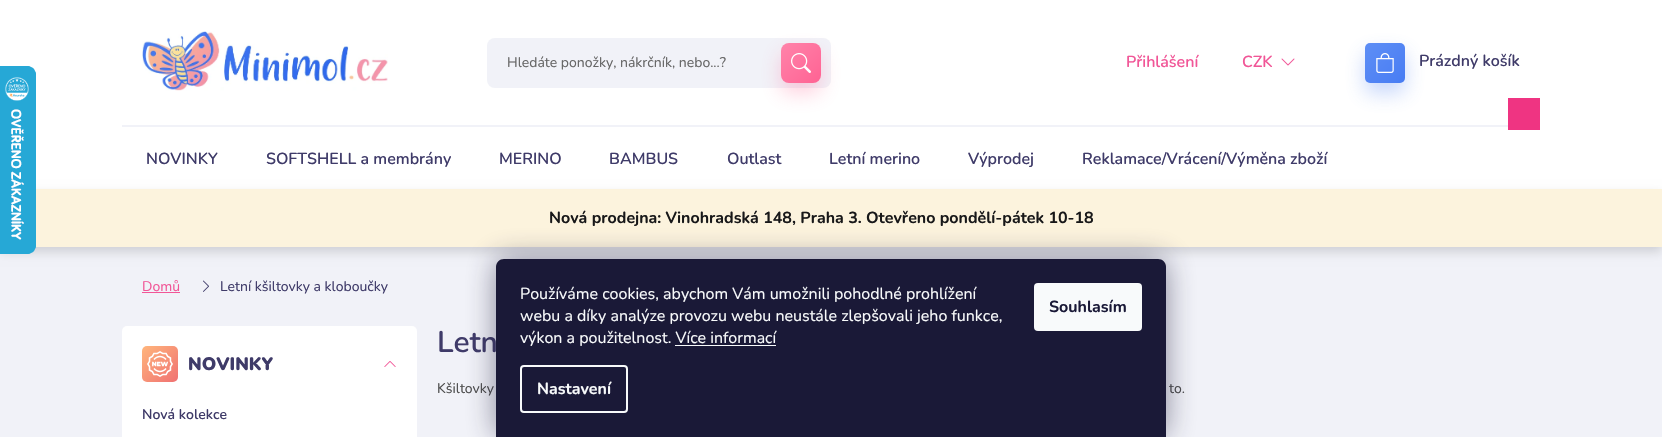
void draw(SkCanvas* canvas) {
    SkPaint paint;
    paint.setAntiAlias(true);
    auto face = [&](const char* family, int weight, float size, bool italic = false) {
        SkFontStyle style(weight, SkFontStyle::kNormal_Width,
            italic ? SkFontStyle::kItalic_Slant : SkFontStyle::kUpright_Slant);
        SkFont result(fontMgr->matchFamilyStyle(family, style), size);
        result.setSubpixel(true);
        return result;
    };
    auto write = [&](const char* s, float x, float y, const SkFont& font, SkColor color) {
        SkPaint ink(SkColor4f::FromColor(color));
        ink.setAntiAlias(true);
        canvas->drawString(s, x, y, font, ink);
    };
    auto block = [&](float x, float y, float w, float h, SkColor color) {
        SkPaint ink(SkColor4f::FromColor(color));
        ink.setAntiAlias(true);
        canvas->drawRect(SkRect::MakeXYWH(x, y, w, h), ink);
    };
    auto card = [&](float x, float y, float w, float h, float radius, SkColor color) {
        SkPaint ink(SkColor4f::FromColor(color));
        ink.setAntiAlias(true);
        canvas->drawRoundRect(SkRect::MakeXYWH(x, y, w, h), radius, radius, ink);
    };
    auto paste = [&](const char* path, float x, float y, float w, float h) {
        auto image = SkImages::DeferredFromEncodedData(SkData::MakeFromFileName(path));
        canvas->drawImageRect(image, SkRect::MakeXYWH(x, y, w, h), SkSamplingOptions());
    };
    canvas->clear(SkColorSetRGB(241, 242, 248));
    block(0, 0, 1662, 189, SK_ColorWHITE);
    paint.setColor(SkColorSetARGB(36, 0, 0, 0));
    paint.setMaskFilter(SkMaskFilter::MakeBlur(kNormal_SkBlurStyle, 5));
    canvas->drawRect(SkRect::MakeXYWH(0, 194, 1662, 58), paint);
    paint.setMaskFilter(nullptr);
    block(35, 189, 1627, 58, SkColorSetRGB(252, 243, 221));
    paste("pic1.png", 0, 66, 36, 188);
    paste("pic2.png", 142, 31, 246, 60);
    card(487, 38, 344, 50, 8, SkColorSetRGB(241, 242, 248));
    auto kFont1 = face("Nunito", 400, 14);
    write("Hledáte ponožky, nákrčník, nebo...?", 507, 67, kFont1, SkColorSetRGB(102, 102, 102));
    paint.setColor(SkColorSetARGB(77, 255, 98, 147));
    paint.setMaskFilter(SkMaskFilter::MakeBlur(kNormal_SkBlurStyle, 10));
    canvas->drawRoundRect(SkRect::MakeXYWH(781, 53, 40, 40), 8, 8, paint);
    paint.setMaskFilter(nullptr);
    {
        const SkColor colors[] = {SkColorSetRGB(255, 98, 147), SkColorSetRGB(255, 107, 153), SkColorSetRGB(255, 115, 159), SkColorSetRGB(255, 123, 164), SkColorSetRGB(255, 131, 170)};
        const float stops[] = {0, 0.25f, 0.5f, 0.75f, 1};
        const SkPoint ends[] = {{821, 83}, {781, 43}};
        paint.setShader(SkGradientShader::MakeLinear(ends, colors, stops, 5, SkTileMode::kClamp));
        paint.setAlpha(255);
    }
    canvas->drawRoundRect(SkRect::MakeXYWH(781, 43, 40, 40), 8, 8, paint);
    paste("pic3.png", 791, 53, 20, 20);
    auto kFont2 = face("Nunito", 600, 16);
    write("Přihlášení", 1126, 67, kFont2, SkColorSetRGB(241, 86, 151));
    write("CZK", 1242, 67, kFont2, SkColorSetRGB(241, 86, 151));
    paste("pic4.png", 1281, 58, 14, 8);
    paint.setShader(nullptr);
    paint.setColor(SkColorSetARGB(77, 71, 124, 243));
    paint.setMaskFilter(SkMaskFilter::MakeBlur(kNormal_SkBlurStyle, 10));
    canvas->drawRoundRect(SkRect::MakeXYWH(1365, 53, 40, 40), 5, 5, paint);
    paint.setMaskFilter(nullptr);
    {
        const SkColor colors[] = {SkColorSetRGB(71, 124, 243), SkColorSetRGB(77, 129, 244), SkColorSetRGB(83, 133, 244), SkColorSetRGB(88, 138, 245), SkColorSetRGB(94, 142, 245)};
        const float stops[] = {0, 0.25f, 0.5f, 0.75f, 1};
        const SkPoint ends[] = {{1405, 83}, {1365, 43}};
        paint.setShader(SkGradientShader::MakeLinear(ends, colors, stops, 5, SkTileMode::kClamp));
        paint.setAlpha(255);
    }
    canvas->drawRoundRect(SkRect::MakeXYWH(1365, 43, 40, 40), 5, 5, paint);
    paste("pic5.png", 1376, 53, 18, 20);
    write("Prázdný košík", 1419, 66, kFont2, SkColorSetRGB(63, 59, 105));
    block(1508, 98, 32, 32, SkColorSetRGB(239, 52, 130));
    block(122, 125, 1386, 2, SkColorSetRGB(241, 242, 248));
    write("NOVINKY", 146, 164, kFont2, SkColorSetRGB(63, 59, 105));
    write("SOFTSHELL a membrány", 266, 164, kFont2, SkColorSetRGB(63, 59, 105));
    write("MERINO", 499, 164, kFont2, SkColorSetRGB(63, 59, 105));
    write("BAMBUS", 609, 164, kFont2, SkColorSetRGB(63, 59, 105));
    write("Outlast", 727, 164, kFont2, SkColorSetRGB(63, 59, 105));
    write("Letní merino", 829, 164, kFont2, SkColorSetRGB(63, 59, 105));
    write("Výprodej", 968, 164, kFont2, SkColorSetRGB(63, 59, 105));
    write("Reklamace/Vrácení/Výměna zboží", 1082, 164, kFont2, SkColorSetRGB(63, 59, 105));
    auto kFont3 = face("Nunito", 700, 16);
    write("Nová prodejna: Vinohradská 148, Praha 3. Otevřeno pondělí-pátek 10-18", 549, 223, kFont3, SkColorSetRGB(24, 24, 25));
    write("Domů", 142, 291, kFont1, SkColorSetRGB(241, 86, 151));
    block(142, 292, 38, 1, SkColorSetRGB(241, 86, 151));
    paste("pic6.png", 203, 280, 6, 12);
    write("Letní kšiltovky a kloboučky", 220, 291, kFont1, SkColorSetRGB(63, 59, 105));
    card(122, 326, 295, 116, 5, SK_ColorWHITE);
    {
        const SkColor colors[] = {SkColorSetRGB(240, 113, 114), SkColorSetRGB(255, 182, 124)};
        const float stops[] = {0, 1};
        const SkPoint ends[] = {{178, 382}, {142, 346}};
        paint.setShader(SkGradientShader::MakeLinear(ends, colors, stops, 2, SkTileMode::kClamp));
        paint.setAlpha(255);
    }
    canvas->drawRoundRect(SkRect::MakeXYWH(142, 346, 36, 36), 5, 5, paint);
    paste("pic7.png", 147, 351, 26, 26);
    auto kFont4 = face("Nunito", 900, 18);
    write("NOVINKY", 188, 370, kFont4, SkColorSetRGB(63, 59, 105));
    paste("pic8.png", 384, 361, 12, 6);
    auto kFont5 = face("Nunito", 600, 14);
    write("Nová kolekce", 142, 419, kFont5, SkColorSetRGB(63, 59, 105));
    auto kFont6 = face("Nunito", 600, 30);
    write("Letn", 437, 352, kFont6, SkColorSetRGB(63, 59, 105));
    write("Kšiltovky", 437, 393, kFont1, SkColorSetRGB(77, 77, 77));
    write("to.", 1169, 393, kFont1, SkColorSetRGB(77, 77, 77));
    paint.setShader(nullptr);
    paint.setColor(SkColorSetARGB(128, 27, 25, 57));
    paint.setMaskFilter(SkMaskFilter::MakeBlur(kNormal_SkBlurStyle, 15));
    canvas->drawRoundRect(SkRect::MakeXYWH(496, 259, 670, 178), 8, 8, paint);
    paint.setMaskFilter(nullptr);
    paint.setColor(SkColorSetRGB(26, 25, 55));
    canvas->drawPath(SkPathBuilder().moveTo(504, 259).lineTo(1158, 259).cubicTo(1162.5f, 259, 1166, 262.5f, 1166, 267).lineTo(1166, 437).lineTo(496, 437).lineTo(496, 267).cubicTo(496, 262.5f, 499.5f, 259, 504, 259).close().detach(), paint);
    auto kFont7 = face("Nunito", 400, 16);
    write("Používáme cookies, abychom Vám umožnili pohodlné prohlížení", 520, 299, kFont7, SkColorSetRGB(248, 250, 251));
    write("webu a díky analýze provozu webu neustále zlepšovali jeho funkce,", 520, 321, kFont7, SkColorSetRGB(248, 250, 251));
    write("výkon a použitelnost. Více informací", 520, 343, kFont7, SkColorSetRGB(248, 250, 251));
    block(675, 345, 101, 1, SkColorSetRGB(248, 250, 251));
    paint.setStyle(SkPaint::kStroke_Style);
    paint.setStrokeWidth(2);
    paint.setColor(SkColorSetRGB(248, 250, 251));
    canvas->drawRoundRect(SkRect::MakeXYWH(521, 366, 106, 46), 3, 3, paint);
    write("Nastavení", 537, 394, kFont3, SkColorSetRGB(248, 250, 251));
    card(1034, 283, 108, 48, 4, SkColorSetRGB(248, 250, 251));
    write("Souhlasím", 1049, 312, kFont3, SkColorSetRGB(26, 25, 55));
}
